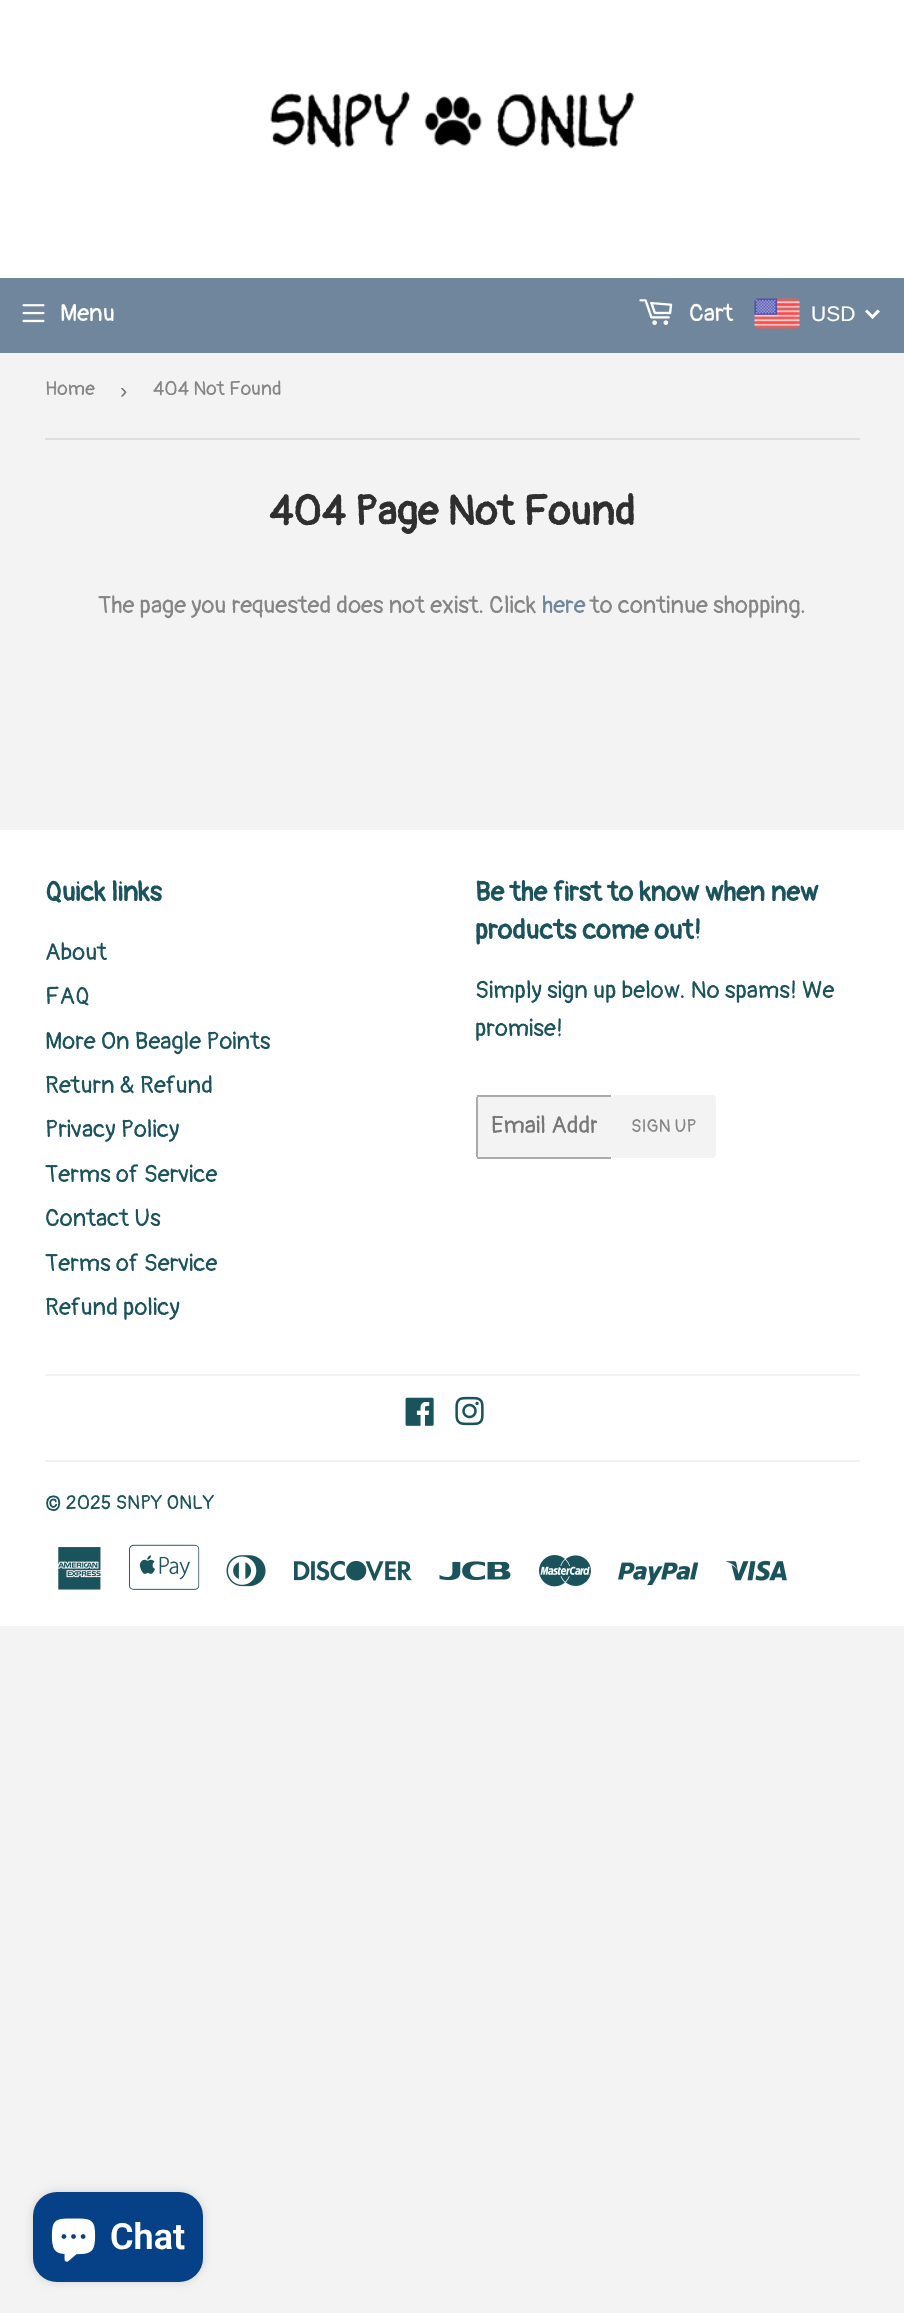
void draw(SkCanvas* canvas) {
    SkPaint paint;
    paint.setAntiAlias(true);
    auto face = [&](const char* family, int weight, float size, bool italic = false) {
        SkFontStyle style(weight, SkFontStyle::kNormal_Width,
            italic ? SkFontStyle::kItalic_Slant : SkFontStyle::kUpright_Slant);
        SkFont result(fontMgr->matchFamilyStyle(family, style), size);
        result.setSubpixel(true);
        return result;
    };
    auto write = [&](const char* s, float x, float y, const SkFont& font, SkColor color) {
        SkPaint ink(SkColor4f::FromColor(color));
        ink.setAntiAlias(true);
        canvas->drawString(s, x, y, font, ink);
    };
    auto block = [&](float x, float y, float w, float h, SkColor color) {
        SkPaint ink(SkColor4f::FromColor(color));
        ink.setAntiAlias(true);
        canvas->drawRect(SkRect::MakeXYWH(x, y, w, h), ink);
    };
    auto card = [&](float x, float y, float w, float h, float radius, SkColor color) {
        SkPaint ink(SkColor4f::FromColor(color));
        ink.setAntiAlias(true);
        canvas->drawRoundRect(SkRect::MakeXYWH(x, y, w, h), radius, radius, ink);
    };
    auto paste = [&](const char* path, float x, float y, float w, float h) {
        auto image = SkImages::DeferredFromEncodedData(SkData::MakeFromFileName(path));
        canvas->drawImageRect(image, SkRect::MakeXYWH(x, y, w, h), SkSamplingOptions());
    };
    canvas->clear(SkColorSetRGB(243, 243, 243));
    block(0, 0, 904, 278, SK_ColorWHITE);
    paste("pic1.png", 270, 91, 365, 58);
    block(0, 278, 904, 75, SkColorSetRGB(111, 134, 156));
    paste("pic2.png", 22, 304, 23, 19);
    auto kFont1 = face("Pangolin", 400, 24);
    write("Menu", 60, 321, kFont1, SK_ColorWHITE);
    paste("pic3.png", 639, 299, 34, 26);
    write("Cart", 689, 321, kFont1, SK_ColorWHITE);
    paste("pic4.png", 754, 298, 46, 31);
    auto kFont2 = face("Liberation Sans", 400, 21);
    write("USD", 811, 321, kFont2, SK_ColorWHITE);
    paint.setColor(SK_ColorWHITE);
    canvas->drawPath(SkPathBuilder().moveTo(877.5f, 309.5f).lineTo(880, 311.5f).lineTo(872.5f, 319).lineTo(870.5f, 317).close().detach(), paint);
    canvas->drawPath(SkPathBuilder().moveTo(867, 309.5f).lineTo(874.5f, 317).lineTo(872.5f, 319).lineTo(865, 311.5f).close().detach(), paint);
    block(45, 438, 815, 2, SkColorSetRGB(222, 222, 222));
    auto kFont3 = face("Pangolin", 400, 19.5f);
    write("Home", 45, 395, kFont3, SkColorSetRGB(133, 133, 133));
    auto kFont4 = face("Liberation Sans", 400, 22);
    write("›", 120, 398, kFont4, SkColorSetRGB(118, 118, 118));
    write("404 Not Found", 153, 395, kFont3, SkColorSetRGB(133, 133, 133));
    auto kFont5 = face("Pangolin", 700, 41.5f);
    write("404 Page Not Found", 269, 525, kFont5, SkColorSetRGB(47, 47, 47));
    write("The page you requested does not exist. Click", 98, 613, kFont1, SkColorSetRGB(133, 133, 133));
    write("here", 542, 613, kFont1, SkColorSetRGB(111, 134, 156));
    write("to continue shopping.", 590, 613, kFont1, SkColorSetRGB(133, 133, 133));
    block(0, 830, 904, 796, SK_ColorWHITE);
    auto kFont6 = face("Pangolin", 700, 27.25f);
    write("Quick links", 45, 901, kFont6, SkColorSetRGB(26, 83, 92));
    write("About", 45, 960, kFont1, SkColorSetRGB(26, 83, 92));
    write("FAQ", 45, 1004, kFont1, SkColorSetRGB(26, 83, 92));
    write("More On Beagle Points", 45, 1049, kFont1, SkColorSetRGB(26, 83, 92));
    write("Return & Refund", 45, 1093, kFont1, SkColorSetRGB(26, 83, 92));
    write("Privacy Policy", 45, 1137, kFont1, SkColorSetRGB(26, 83, 92));
    write("Terms of Service", 45, 1182, kFont1, SkColorSetRGB(26, 83, 92));
    write("Contact Us", 45, 1226, kFont1, SkColorSetRGB(26, 83, 92));
    write("Terms of Service", 45, 1271, kFont1, SkColorSetRGB(26, 83, 92));
    write("Refund policy", 45, 1315, kFont1, SkColorSetRGB(26, 83, 92));
    write("Be the first to know when new", 475, 901, kFont6, SkColorSetRGB(26, 83, 92));
    write("products come out!", 475, 939, kFont6, SkColorSetRGB(26, 83, 92));
    write("Simply sign up below. No spams! We", 475, 998, kFont1, SkColorSetRGB(26, 83, 92));
    write("promise!", 475, 1036, kFont1, SkColorSetRGB(26, 83, 92));
    card(476, 1095, 136, 63, 3, SkColorSetRGB(243, 243, 243));
    block(477, 1095, 134, 2, SkColorSetRGB(171, 171, 171));
    block(477, 1157, 134, 2, SkColorSetRGB(171, 171, 171));
    block(476, 1097, 2, 60, SkColorSetRGB(171, 171, 171));
    canvas->save();
    canvas->clipRect(SkRect::MakeXYWH(492, 1112, 105, 30));
    write("Email Addr", 491, 1133, kFont1, SkColorSetRGB(118, 118, 118));
    canvas->restore();
    paint.setColor(SkColorSetRGB(243, 243, 243));
    canvas->drawPath(SkPathBuilder().moveTo(612, 1095).lineTo(713, 1095).cubicTo(714.5f, 1095, 716, 1096.5f, 716, 1098).lineTo(716, 1155).cubicTo(716, 1156.5f, 714.5f, 1158, 713, 1158).lineTo(612, 1158).close().detach(), paint);
    auto kFont7 = face("Pangolin", 400, 18);
    write("SIGN UP", 631, 1132, kFont7, SkColorSetRGB(133, 133, 133));
    block(45, 1374, 815, 2, SkColorSetRGB(242, 242, 242));
    paste("pic5.png", 405, 1397, 29, 29);
    paste("pic6.png", 455, 1396, 29, 30);
    block(45, 1460, 815, 2, SkColorSetRGB(242, 242, 242));
    write("© 2025 SNPY ONLY", 45, 1509, kFont3, SkColorSetRGB(26, 83, 92));
    paste("pic7.png", 58, 1547, 43, 43);
    paste("pic8.png", 129, 1544, 71, 46);
    paste("pic9.png", 226, 1555, 40, 32);
    paste("pic10.png", 294, 1560, 118, 21);
    paste("pic11.png", 439, 1561, 72, 20);
    paste("pic12.png", 539, 1555, 52, 32);
    paste("pic13.png", 618, 1562, 81, 24);
    paste("pic14.png", 726, 1560, 61, 21);
    paint.setColor(SkColorSetARGB(38, 0, 0, 0));
    paint.setMaskFilter(SkMaskFilter::MakeBlur(kNormal_SkBlurStyle, 4));
    canvas->drawRoundRect(SkRect::MakeXYWH(33, 2192, 170, 90), 24, 24, paint);
    paint.setMaskFilter(nullptr);
    card(33, 2192, 170, 90, 24, SkColorSetRGB(6, 65, 135));
    paste("pic15.png", 51, 2218, 45, 44);
    auto kFont8 = face("Roboto", 600, 36);
    write("Chat", 110, 2249, kFont8, SK_ColorWHITE);
}
